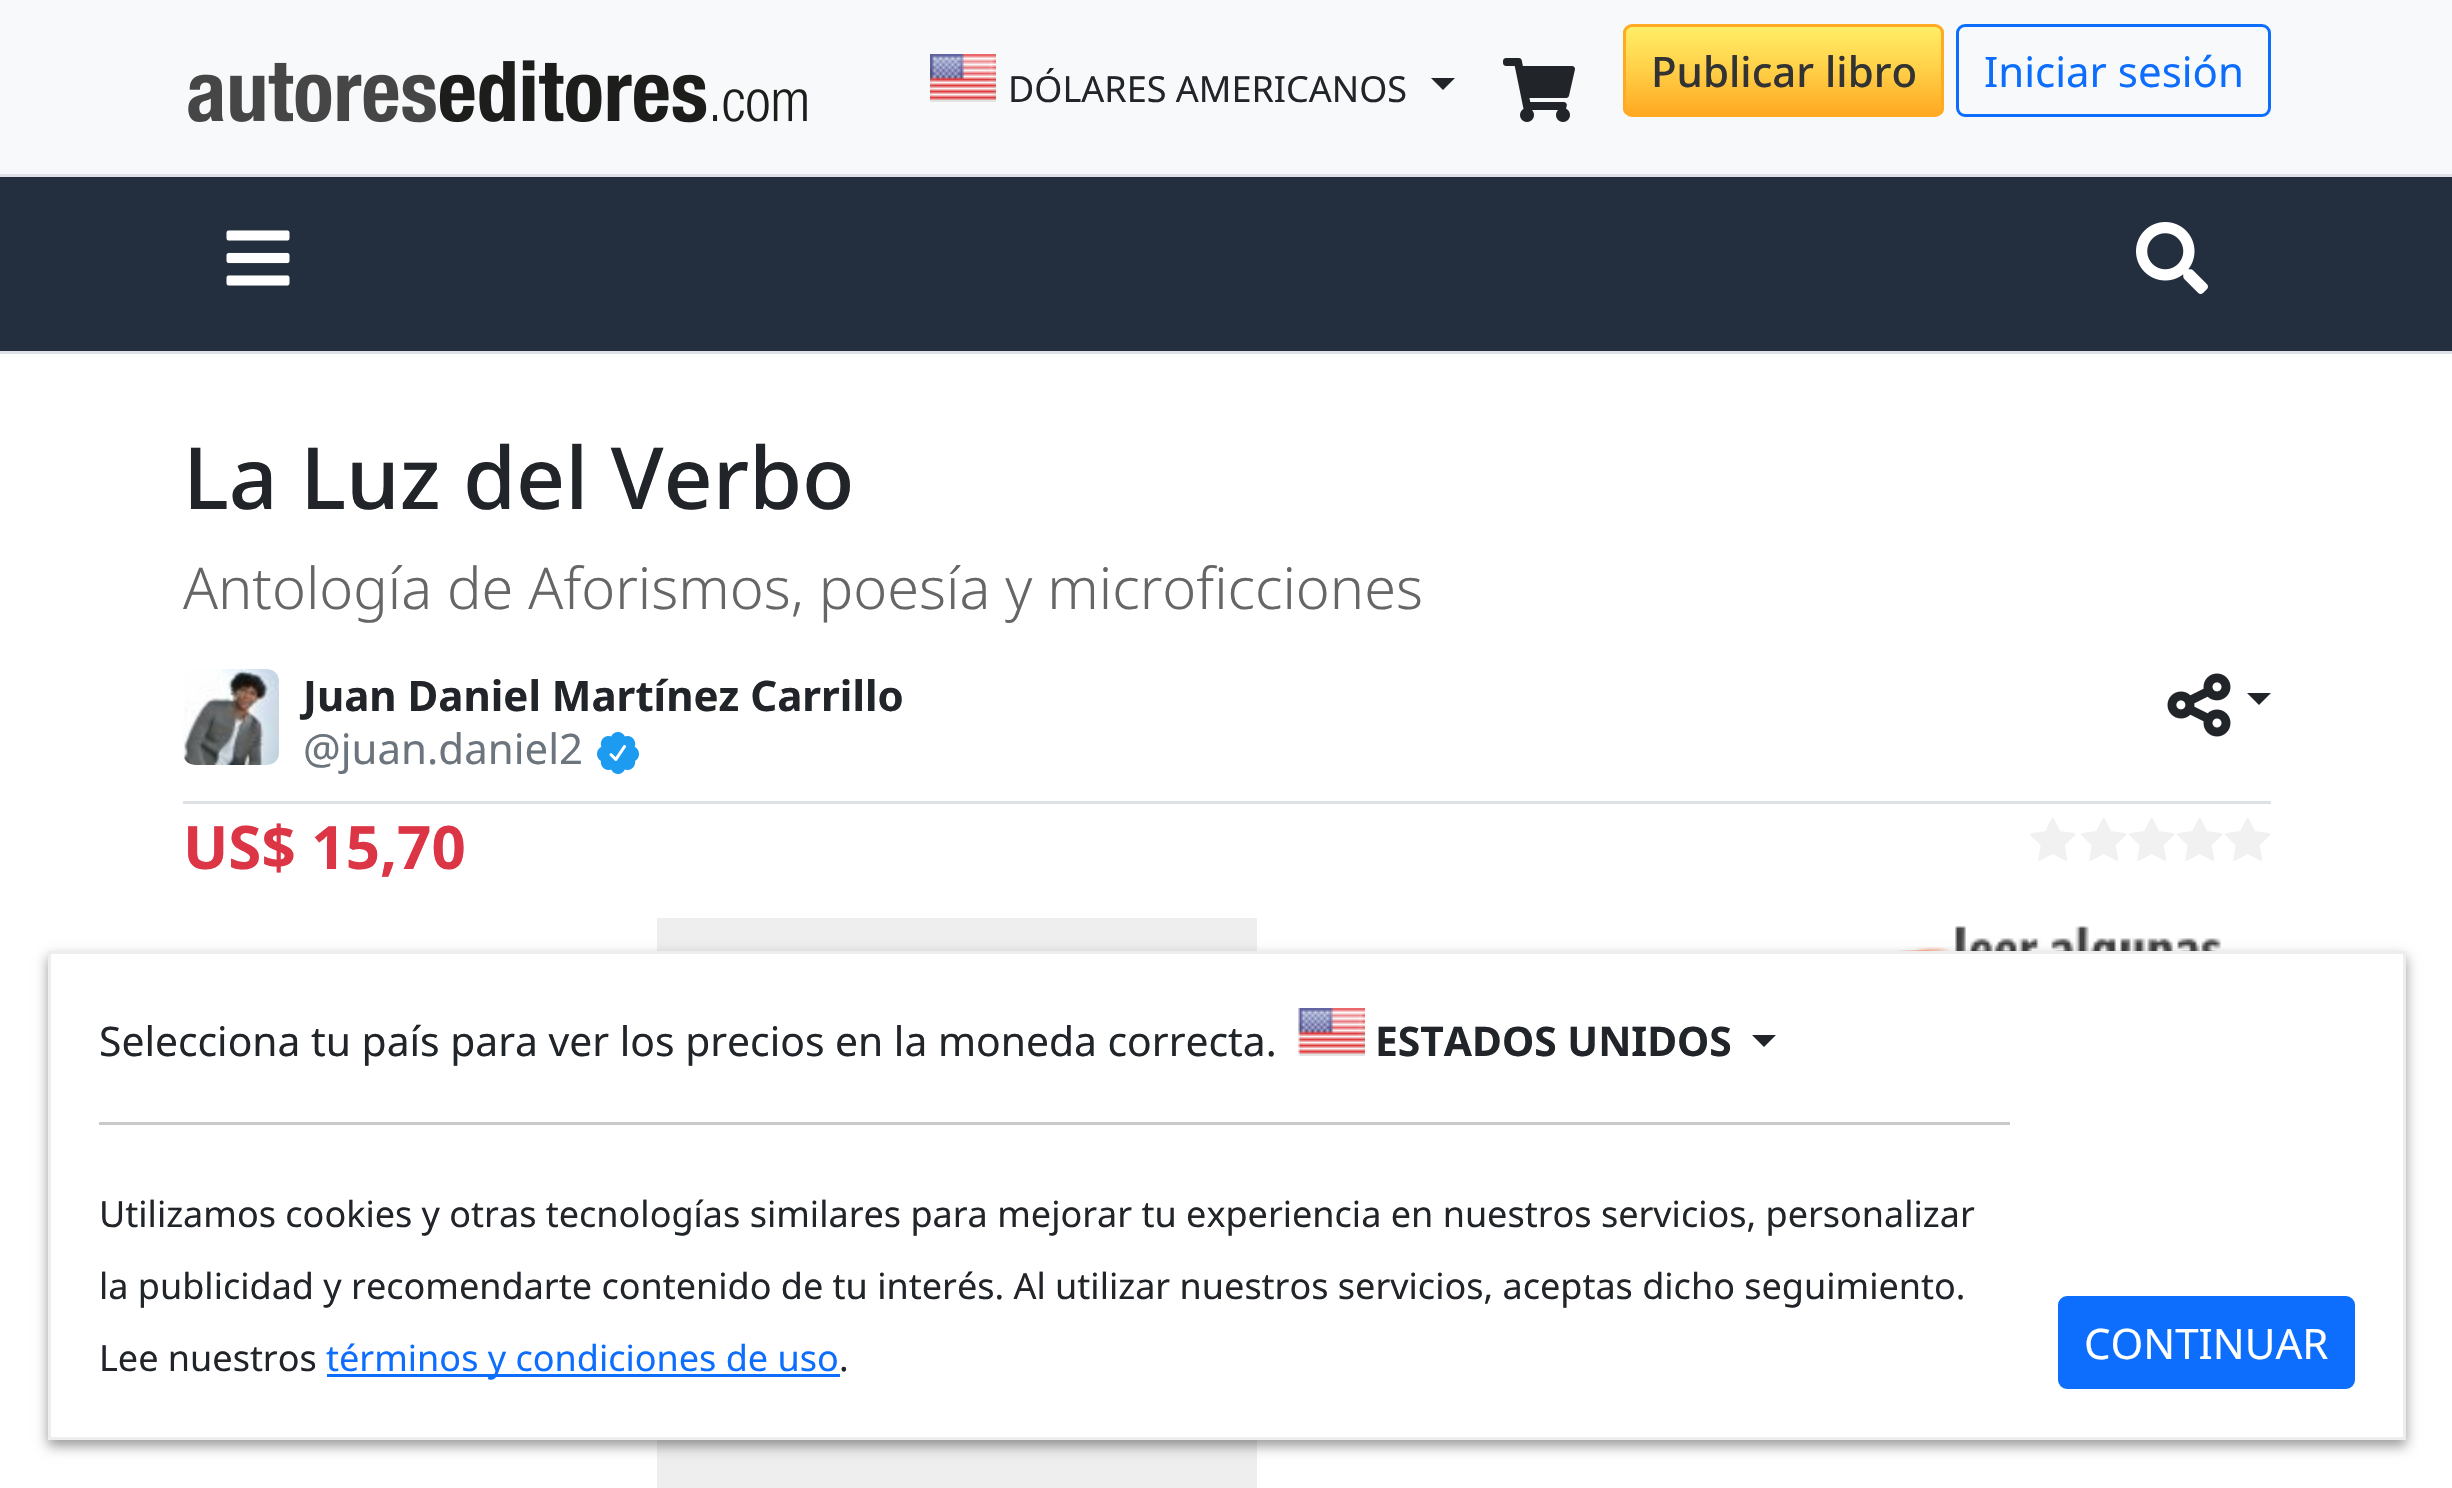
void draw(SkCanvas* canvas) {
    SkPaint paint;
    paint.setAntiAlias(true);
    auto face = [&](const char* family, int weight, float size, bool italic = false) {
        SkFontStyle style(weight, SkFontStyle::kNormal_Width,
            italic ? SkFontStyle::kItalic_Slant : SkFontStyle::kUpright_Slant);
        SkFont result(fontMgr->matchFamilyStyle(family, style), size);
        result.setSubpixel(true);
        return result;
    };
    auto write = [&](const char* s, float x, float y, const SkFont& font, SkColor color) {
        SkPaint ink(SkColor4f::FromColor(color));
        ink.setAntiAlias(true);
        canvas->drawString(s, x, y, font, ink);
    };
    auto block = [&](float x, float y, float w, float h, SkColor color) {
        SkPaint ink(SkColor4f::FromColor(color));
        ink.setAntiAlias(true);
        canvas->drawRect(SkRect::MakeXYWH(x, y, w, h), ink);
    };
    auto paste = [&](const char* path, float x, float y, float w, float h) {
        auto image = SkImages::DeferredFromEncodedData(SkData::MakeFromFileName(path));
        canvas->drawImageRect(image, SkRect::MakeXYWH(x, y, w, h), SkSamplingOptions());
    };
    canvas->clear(SK_ColorWHITE);
    block(0, 0, 2452, 174, SkColorSetRGB(248, 249, 250));
    block(0, 174, 2452, 3, SkColorSetRGB(222, 226, 230));
    paste("pic1.png", 188, 60, 619, 63);
    paste("pic2.png", 930, 54, 66, 48);
    auto kFont1 = face("Noto Sans", 400, 36);
    write("DÓLARES AMERICANOS", 1008, 102, kFont1, SkColorSetRGB(33, 37, 41));
    paint.setColor(SkColorSetRGB(33, 37, 41));
    canvas->drawPath(SkPathBuilder().moveTo(1431, 78).lineTo(1455, 78).lineTo(1443, 90).close().detach(), paint);
    paste("pic3.png", 1503, 58, 72, 64);
    canvas->save();
    canvas->clipPath(SkPathBuilder().moveTo(1632, 24).lineTo(1935, 24).cubicTo(1940, 24, 1944, 28, 1944, 33).lineTo(1944, 108).cubicTo(1944, 113, 1940, 117, 1935, 117).lineTo(1632, 117).cubicTo(1627, 117, 1623, 113, 1623, 108).lineTo(1623, 33).cubicTo(1623, 28, 1627, 24, 1632, 24).close().detach(), true);
    {
        const SkColor colors[] = {SkColorSetRGB(255, 170, 34), SkColorSetRGB(255, 207, 71), SkColorSetRGB(255, 238, 102)};
        const float stops[] = {0, 0.5f, 1};
        const SkPoint ends[] = {{1784, 114}, {1784, 27}};
        paint.setShader(SkGradientShader::MakeLinear(ends, colors, stops, 3, SkTileMode::kClamp));
        paint.setAlpha(255);
    }
    canvas->drawRect(SkRect::MakeXYWH(1623, 27, 321, 87), paint);
    canvas->restore();
    paint.setStyle(SkPaint::kStroke_Style);
    paint.setStrokeWidth(3);
    paint.setShader(nullptr);
    paint.setColor(SkColorSetRGB(255, 170, 34));
    canvas->drawRoundRect(SkRect::MakeXYWH(1624.5f, 25.5f, 318, 90), 7.5f, 7.5f, paint);
    auto kFont2 = face("Noto Sans", 500, 42);
    write("Publicar libro", 1651, 87, kFont2, SkColorSetRGB(51, 51, 51));
    paint.setColor(SkColorSetRGB(13, 110, 253));
    canvas->drawRoundRect(SkRect::MakeXYWH(1957.5f, 25.5f, 312, 90), 7.5f, 7.5f, paint);
    auto kFont3 = face("Noto Sans", 400, 42);
    write("Iniciar sesión", 1984, 87, kFont3, SkColorSetRGB(13, 110, 253));
    block(0, 177, 2452, 174, SkColorSetRGB(35, 47, 62));
    paste("pic4.png", 226, 230, 64, 56);
    paste("pic5.png", 2136, 222, 72, 72);
    block(0, 351, 2452, 3, SkColorSetRGB(222, 226, 230));
    auto kFont4 = face("Noto Sans", 500, 85.75f);
    write("La Luz del Verbo", 183, 509, kFont4, SkColorSetRGB(33, 37, 41));
    auto kFont5 = face("Noto Sans", 300, 57.6f);
    write("Antología de Aforismos, poesía y microficciones", 183, 609, kFont5, SkColorSetRGB(102, 102, 102));
    block(183, 801, 2088, 3, SkColorSetRGB(222, 226, 230));
    paste("pic6.png", 183, 669, 96, 96);
    auto kFont6 = face("Noto Sans", 700, 42);
    write("Juan Daniel Martínez Carrillo", 303, 711, kFont6, SkColorSetRGB(33, 37, 41));
    write("@juan.daniel2", 303, 764, kFont3, SkColorSetRGB(108, 117, 125));
    paste("pic7.png", 597, 732, 42, 42);
    paste("pic8.png", 2167, 673, 64, 64);
    paint.setStyle(SkPaint::kFill_Style);
    paint.setColor(SkColorSetRGB(33, 37, 41));
    canvas->drawPath(SkPathBuilder().moveTo(2247, 693).lineTo(2271, 693).lineTo(2259, 705).close().detach(), paint);
    auto kFont7 = face("Noto Sans", 700, 60);
    write("US$ 15,70", 183, 869, kFont7, SkColorSetRGB(220, 53, 69));
    paste("pic9.png", 2030, 817, 46, 44);
    paste("pic9.png", 2081, 817, 46, 44);
    paste("pic9.png", 2129, 817, 46, 44);
    paste("pic9.png", 2177, 817, 46, 44);
    paste("pic9.png", 2225, 817, 46, 44);
    block(657, 918, 600, 570, SkColorSetRGB(238, 238, 238));
    paste("pic10.png", 1898, 926, 323, 25);
    paint.setColor(SkColorSetARGB(102, 0, 0, 0));
    paint.setMaskFilter(SkMaskFilter::MakeBlur(kNormal_SkBlurStyle, 6));
    canvas->drawRect(SkRect::MakeXYWH(48, 957, 2358, 489), paint);
    paint.setMaskFilter(nullptr);
    paint.setColor(SK_ColorWHITE);
    canvas->drawRect(SkRect::MakeXYWH(49.5f, 952.5f, 2355, 486), paint);
    paint.setStyle(SkPaint::kStroke_Style);
    paint.setColor(SkColorSetRGB(238, 238, 238));
    canvas->drawRect(SkRect::MakeXYWH(49.5f, 952.5f, 2355, 486), paint);
    auto kFont8 = face("Noto Sans", 400, 40.8f);
    write("Selecciona tu país para ver los precios en la moneda correcta.", 99, 1056, kFont8, SkColorSetRGB(33, 37, 41));
    paste("pic11.png", 1298, 1008, 67, 48);
    auto kFont9 = face("Noto Sans", 700, 40.8f);
    write("ESTADOS UNIDOS", 1375, 1056, kFont9, SkColorSetRGB(33, 37, 41));
    paint.setStyle(SkPaint::kFill_Style);
    paint.setColor(SkColorSetRGB(33, 37, 41));
    canvas->drawPath(SkPathBuilder().moveTo(1752, 1035).lineTo(1776, 1035).lineTo(1764, 1047).close().detach(), paint);
    block(99, 1122, 1911, 3, SkColorSetRGB(200, 201, 202));
    write("Utilizamos cookies y otras tecnologías similares para mejorar tu experiencia en nuestros servicios, personalizar", 99, 1227, kFont1, SkColorSetRGB(33, 37, 41));
    write("la publicidad y recomendarte contenido de tu interés. Al utilizar nuestros servicios, aceptas dicho seguimiento.", 99, 1299, kFont1, SkColorSetRGB(33, 37, 41));
    write("Lee nuestros", 99, 1371, kFont1, SkColorSetRGB(33, 37, 41));
    block(327, 1374, 513, 3, SkColorSetRGB(13, 110, 253));
    write("términos y condiciones de uso", 326, 1371, kFont1, SkColorSetRGB(13, 110, 253));
    write(".", 839, 1371, kFont1, SkColorSetRGB(33, 37, 41));
    paint.setColor(SkColorSetRGB(13, 110, 253));
    canvas->drawRoundRect(SkRect::MakeXYWH(2059.5f, 1297.5f, 294, 90), 7.5f, 7.5f, paint);
    paint.setStyle(SkPaint::kStroke_Style);
    canvas->drawRoundRect(SkRect::MakeXYWH(2059.5f, 1297.5f, 294, 90), 7.5f, 7.5f, paint);
    write("CONTINUAR", 2084, 1359, kFont3, SK_ColorWHITE);
}
